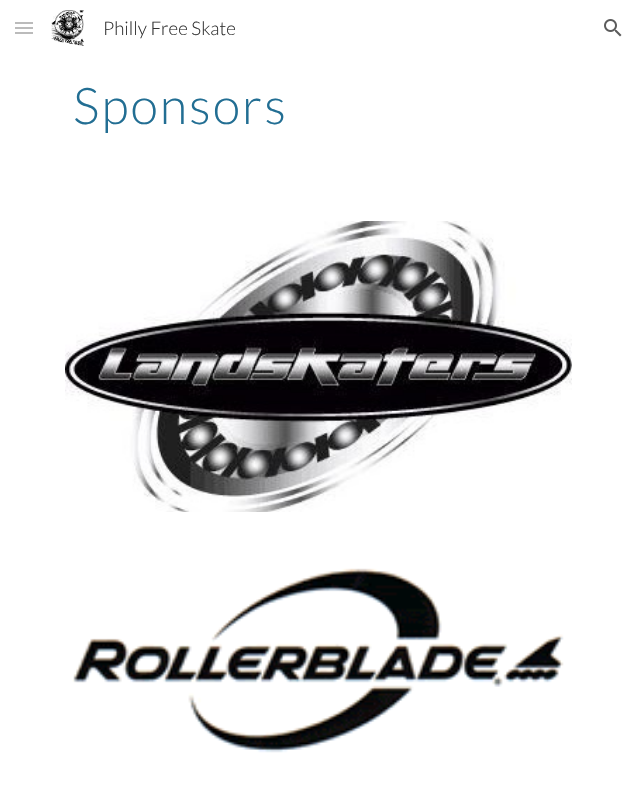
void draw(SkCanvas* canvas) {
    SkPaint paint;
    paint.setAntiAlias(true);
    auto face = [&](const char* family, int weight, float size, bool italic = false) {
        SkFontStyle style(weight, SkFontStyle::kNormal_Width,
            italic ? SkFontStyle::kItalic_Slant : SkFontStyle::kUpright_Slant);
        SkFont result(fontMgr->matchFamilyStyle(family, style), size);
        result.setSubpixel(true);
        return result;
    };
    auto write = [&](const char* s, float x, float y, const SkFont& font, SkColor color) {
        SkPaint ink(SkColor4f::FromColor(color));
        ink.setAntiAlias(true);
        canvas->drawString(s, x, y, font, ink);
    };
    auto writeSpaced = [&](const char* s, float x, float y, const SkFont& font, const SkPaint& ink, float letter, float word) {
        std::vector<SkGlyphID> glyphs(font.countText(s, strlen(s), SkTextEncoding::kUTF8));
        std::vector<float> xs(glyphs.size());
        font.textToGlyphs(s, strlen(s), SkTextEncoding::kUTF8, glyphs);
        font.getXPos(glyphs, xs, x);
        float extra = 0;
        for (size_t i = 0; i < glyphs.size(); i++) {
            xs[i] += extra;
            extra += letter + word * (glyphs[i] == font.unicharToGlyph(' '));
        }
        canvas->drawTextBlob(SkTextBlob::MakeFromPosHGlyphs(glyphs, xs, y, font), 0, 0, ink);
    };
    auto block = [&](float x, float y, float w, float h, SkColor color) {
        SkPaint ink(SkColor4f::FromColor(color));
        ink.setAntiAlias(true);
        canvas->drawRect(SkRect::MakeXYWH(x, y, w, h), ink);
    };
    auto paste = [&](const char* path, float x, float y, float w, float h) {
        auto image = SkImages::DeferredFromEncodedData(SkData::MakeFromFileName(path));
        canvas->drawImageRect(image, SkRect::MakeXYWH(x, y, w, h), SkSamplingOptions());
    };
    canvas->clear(SK_ColorWHITE);
    block(15, 22, 18, 2, SkColorSetRGB(187, 187, 187));
    block(15, 27, 18, 2, SkColorSetRGB(187, 187, 187));
    block(15, 32, 18, 2, SkColorSetRGB(187, 187, 187));
    paste("pic1.png", 51, 10, 33, 36);
    auto kFont1 = face("Lato", 300, 18.75f);
    write("Philly Free Skate", 103, 35, kFont1, SkColorSetRGB(51, 51, 51));
    paste("pic2.png", 604, 19, 18, 18);
    auto kFont2 = face("Lato", 300, 50.5f);
    paint.setColor(SkColorSetRGB(34, 110, 147));
    writeSpaced("Sponsors", 73, 124, kFont2, paint, 2, 0);
    paste("pic3.png", 65, 221, 507, 291);
    paste("pic4.png", 72, 568, 492, 185);
}
